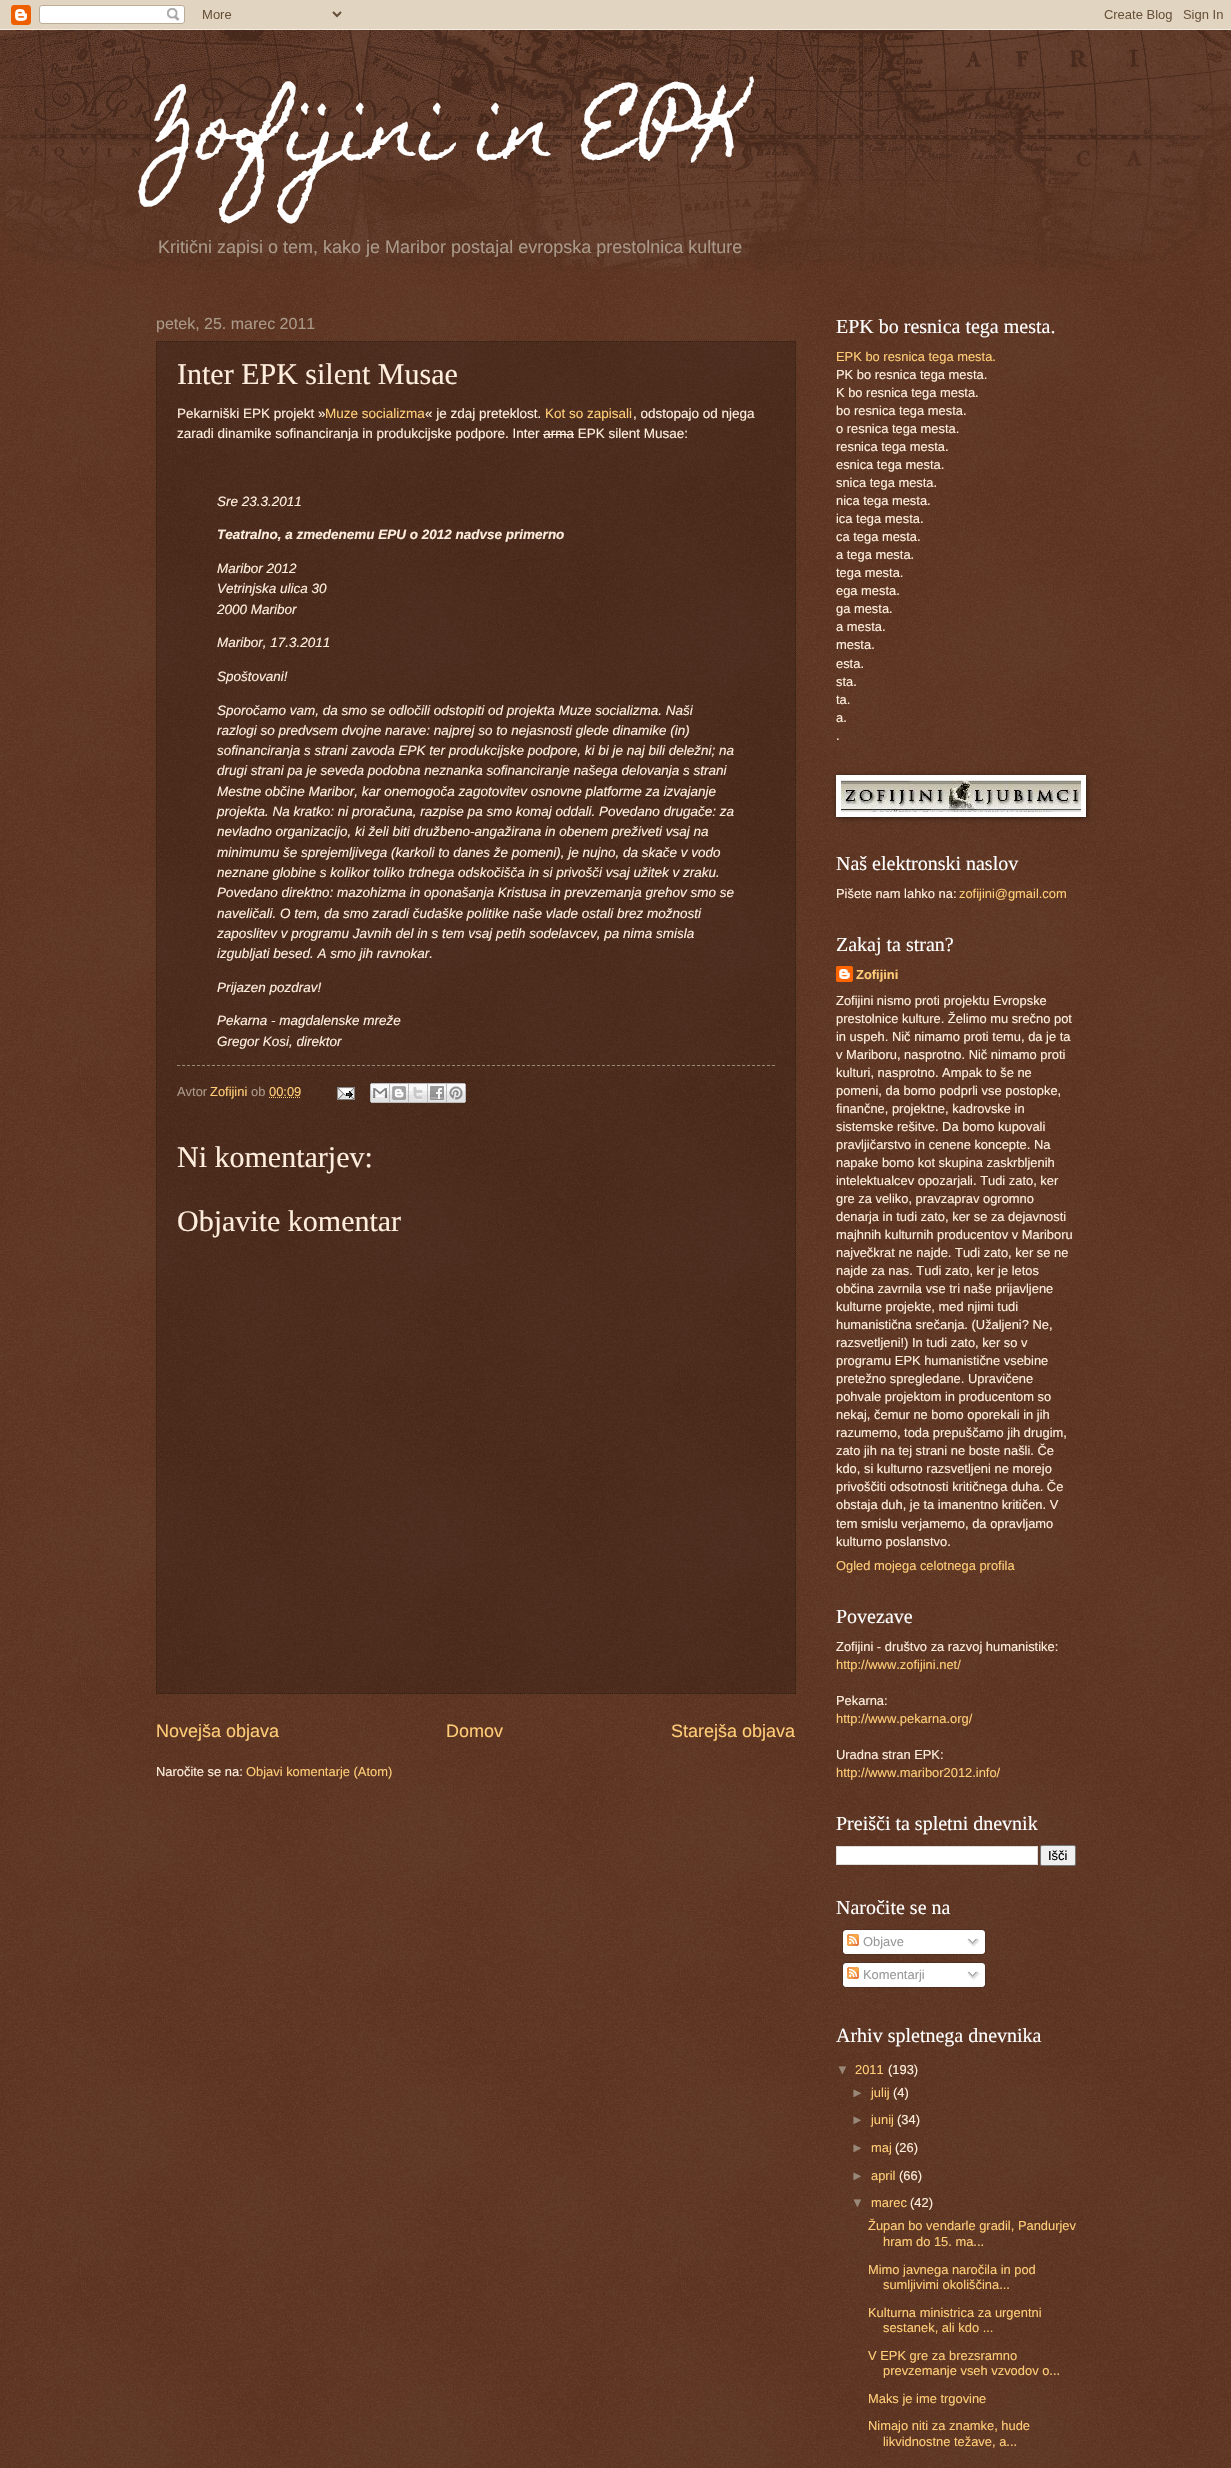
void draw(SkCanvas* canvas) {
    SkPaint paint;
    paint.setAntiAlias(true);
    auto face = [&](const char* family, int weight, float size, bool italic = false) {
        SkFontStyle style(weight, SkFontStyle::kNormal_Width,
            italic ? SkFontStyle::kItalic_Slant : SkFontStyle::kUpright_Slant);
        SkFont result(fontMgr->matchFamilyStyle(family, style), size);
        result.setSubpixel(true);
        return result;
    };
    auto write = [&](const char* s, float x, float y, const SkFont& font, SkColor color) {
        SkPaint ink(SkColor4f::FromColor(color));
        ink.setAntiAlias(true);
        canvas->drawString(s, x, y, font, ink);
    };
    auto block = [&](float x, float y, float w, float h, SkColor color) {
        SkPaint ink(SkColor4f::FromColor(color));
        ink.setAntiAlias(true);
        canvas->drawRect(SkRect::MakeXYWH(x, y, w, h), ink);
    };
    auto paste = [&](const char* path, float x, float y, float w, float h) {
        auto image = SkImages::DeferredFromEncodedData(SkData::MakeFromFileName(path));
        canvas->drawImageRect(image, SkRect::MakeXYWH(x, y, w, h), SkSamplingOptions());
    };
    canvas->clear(SkColorSetRGB(68, 21, 0));
    paste("pic1.png", 0, 30, 1231, 2438);
    paste("pic2.png", 0, 0, 1231, 30);
    paste("pic3.png", 0, 30, 1231, 240);
    auto kFont1 = face("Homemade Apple", 400, 80);
    write("Zofijini in EPK", 156, 156, kFont1, SK_ColorWHITE);
    auto kFont2 = face("Liberation Sans", 400, 18);
    write("Kritični zapisi o tem, kako je Maribor postajal evropska prestolnica kulture", 158, 253, kFont2, SkColorSetRGB(170, 153, 136));
    auto kFont3 = face("Liberation Sans", 400, 16);
    write("petek, 25. marec 2011", 156, 329, kFont3, SkColorSetRGB(170, 153, 136));
    block(156, 341, 640, 1353, SkColorSetARGB(51, 0, 0, 0));
    paint.setStyle(SkPaint::kStroke_Style);
    paint.setStrokeWidth(1);
    paint.setColor(SkColorSetRGB(51, 34, 17));
    paint.setPathEffect(SkDashPathEffect::Make({{1, 1}}, 0));
    canvas->drawPath(SkPathBuilder().moveTo(156, 341.5f).lineTo(796, 341.5f).detach(), paint);
    paint.setPathEffect(nullptr);
    paint.setPathEffect(SkDashPathEffect::Make({{1, 1}}, 0));
    canvas->drawPath(SkPathBuilder().moveTo(795.5f, 341).lineTo(795.5f, 1694).detach(), paint);
    paint.setPathEffect(nullptr);
    paint.setPathEffect(SkDashPathEffect::Make({{1, 1}}, 0));
    canvas->drawPath(SkPathBuilder().moveTo(156, 1693.5f).lineTo(796, 1693.5f).detach(), paint);
    paint.setPathEffect(nullptr);
    paint.setPathEffect(SkDashPathEffect::Make({{1, 1}}, 0));
    canvas->drawPath(SkPathBuilder().moveTo(156.5f, 341).lineTo(156.5f, 1694).detach(), paint);
    paint.setPathEffect(nullptr);
    auto kFont4 = face("Liberation Serif", 400, 30);
    write("Inter EPK silent Musae", 177, 384, kFont4, SkColorSetRGB(255, 238, 221));
    auto kFont5 = face("Liberation Sans", 400, 13.5f);
    write("Pekarniški EPK projekt »", 177, 418, kFont5, SkColorSetRGB(255, 238, 221));
    write("Muze socializma", 325, 418, kFont5, SkColorSetRGB(255, 204, 119));
    write("« je zdaj preteklost.", 425, 418, kFont5, SkColorSetRGB(255, 238, 221));
    write("Kot so zapisali", 545, 418, kFont5, SkColorSetRGB(255, 204, 119));
    write(", odstopajo od njega", 633, 418, kFont5, SkColorSetRGB(255, 238, 221));
    write("zaradi dinamike sofinanciranja in produkcijske podpore. Inter arma EPK silent Musae:", 177, 438, kFont5, SkColorSetRGB(255, 238, 221));
    block(543, 434, 31, 1, SkColorSetRGB(255, 238, 221));
    auto kFont6 = face("Liberation Sans", 400, 13.5f, true);
    write("Sre 23.3.2011", 217, 506, kFont6, SkColorSetRGB(255, 238, 221));
    auto kFont7 = face("Liberation Sans", 700, 13.5f, true);
    write("Teatralno, a zmedenemu EPU o 2012 nadvse primerno", 217, 539, kFont7, SkColorSetRGB(255, 238, 221));
    write("Maribor 2012", 217, 573, kFont6, SkColorSetRGB(255, 238, 221));
    write("Vetrinjska ulica 30", 217, 593, kFont6, SkColorSetRGB(255, 238, 221));
    write("2000 Maribor", 217, 614, kFont6, SkColorSetRGB(255, 238, 221));
    write("Maribor, 17.3.2011", 217, 647, kFont6, SkColorSetRGB(255, 238, 221));
    write("Spoštovani!", 217, 681, kFont6, SkColorSetRGB(255, 238, 221));
    write("Sporočamo vam, da smo se odločili odstopiti od projekta Muze socializma. Naši", 217, 715, kFont6, SkColorSetRGB(255, 238, 221));
    write("razlogi so predvsem dvojne narave: najprej so to nejasnosti glede dinamike (in)", 217, 735, kFont6, SkColorSetRGB(255, 238, 221));
    write("sofinanciranja s strani zavoda EPK ter produkcijske podpore, ki bi je naj bili deležni; na", 217, 755, kFont6, SkColorSetRGB(255, 238, 221));
    write("drugi strani pa je seveda podobna neznanka sofinanciranje našega delovanja s strani", 217, 775, kFont6, SkColorSetRGB(255, 238, 221));
    write("Mestne občine Maribor, kar onemogoča zagotovitev osnovne platforme za izvajanje", 217, 796, kFont6, SkColorSetRGB(255, 238, 221));
    write("projekta. Na kratko: ni proračuna, razpise pa smo komaj oddali. Povedano drugače: za", 217, 816, kFont6, SkColorSetRGB(255, 238, 221));
    write("nevladno organizacijo, ki želi biti družbeno-angažirana in obenem preživeti vsaj na", 217, 836, kFont6, SkColorSetRGB(255, 238, 221));
    write("minimumu še sprejemljivega (karkoli to danes že pomeni), je nujno, da skače v vodo", 217, 857, kFont6, SkColorSetRGB(255, 238, 221));
    write("neznane globine s kolikor toliko trdnega odskočišča in si privošči vsaj užitek v zraku.", 217, 877, kFont6, SkColorSetRGB(255, 238, 221));
    write("Povedano direktno: mazohizma in oponašanja Kristusa in prevzemanja grehov smo se", 217, 897, kFont6, SkColorSetRGB(255, 238, 221));
    write("naveličali. O tem, da smo zaradi čudaške politike naše vlade ostali brez možnosti", 217, 918, kFont6, SkColorSetRGB(255, 238, 221));
    write("zaposlitev v programu Javnih del in s tem vsaj petih sodelavcev, pa nima smisla", 217, 938, kFont6, SkColorSetRGB(255, 238, 221));
    write("izgubljati besed. A smo jih ravnokar.", 217, 958, kFont6, SkColorSetRGB(255, 238, 221));
    write("Prijazen pozdrav!", 217, 992, kFont6, SkColorSetRGB(255, 238, 221));
    write("Pekarna - magdalenske mreže", 217, 1025, kFont6, SkColorSetRGB(255, 238, 221));
    write("Gregor Kosi, direktor", 217, 1046, kFont6, SkColorSetRGB(255, 238, 221));
    paint.setColor(SkColorSetRGB(153, 136, 119));
    paint.setPathEffect(SkDashPathEffect::Make({{3, 2}}, 0));
    canvas->drawPath(SkPathBuilder().moveTo(177, 1065.5f).lineTo(775, 1065.5f).detach(), paint);
    paint.setPathEffect(nullptr);
    auto kFont8 = face("Liberation Sans", 400, 12.9f);
    write("Avtor", 177, 1096, kFont8, SkColorSetRGB(170, 153, 136));
    write("Zofijini", 210, 1096, kFont8, SkColorSetRGB(255, 204, 119));
    write("ob", 251, 1096, kFont8, SkColorSetRGB(170, 153, 136));
    write("00:09", 269, 1096, kFont8, SkColorSetRGB(255, 204, 119));
    paint.setColor(SkColorSetRGB(255, 204, 119));
    paint.setPathEffect(SkDashPathEffect::Make({{1, 1}}, 0));
    canvas->drawPath(SkPathBuilder().moveTo(269, 1097.5f).lineTo(301, 1097.5f).detach(), paint);
    paint.setPathEffect(nullptr);
    paste("pic4.png", 337, 1087, 18, 13);
    paste("pic5.png", 370, 1083, 20, 20);
    paste("pic6.png", 390, 1083, 19, 20);
    paste("pic7.png", 409, 1083, 19, 20);
    paste("pic8.png", 428, 1083, 19, 20);
    paste("pic9.png", 447, 1083, 19, 20);
    write("Ni komentarjev:", 177, 1167, kFont4, SkColorSetRGB(255, 238, 221));
    write("Objavite komentar", 177, 1231, kFont4, SkColorSetRGB(255, 238, 221));
    write("Novejša objava", 156, 1737, kFont2, SkColorSetRGB(255, 204, 119));
    write("Domov", 446, 1737, kFont2, SkColorSetRGB(255, 204, 119));
    write("Starejša objava", 671, 1737, kFont2, SkColorSetRGB(255, 204, 119));
    write("Naročite se na:", 156, 1776, kFont8, SkColorSetRGB(255, 238, 221));
    write("Objavi komentarje (Atom)", 246, 1776, kFont8, SkColorSetRGB(255, 204, 119));
    auto kFont9 = face("Liberation Serif", 400, 20);
    write("EPK bo resnica tega mesta.", 836, 333, kFont9, SK_ColorWHITE);
    write("EPK bo resnica tega mesta.", 836, 361, kFont8, SkColorSetRGB(255, 204, 119));
    write("PK bo resnica tega mesta.", 836, 379, kFont8, SkColorSetRGB(255, 238, 221));
    write("K bo resnica tega mesta.", 836, 397, kFont8, SkColorSetRGB(255, 238, 221));
    write("bo resnica tega mesta.", 836, 415, kFont8, SkColorSetRGB(255, 238, 221));
    write("o resnica tega mesta.", 836, 433, kFont8, SkColorSetRGB(255, 238, 221));
    write("resnica tega mesta.", 836, 451, kFont8, SkColorSetRGB(255, 238, 221));
    write("esnica tega mesta.", 836, 469, kFont8, SkColorSetRGB(255, 238, 221));
    write("snica tega mesta.", 836, 487, kFont8, SkColorSetRGB(255, 238, 221));
    write("nica tega mesta.", 836, 505, kFont8, SkColorSetRGB(255, 238, 221));
    write("ica tega mesta.", 836, 523, kFont8, SkColorSetRGB(255, 238, 221));
    write("ca tega mesta.", 836, 541, kFont8, SkColorSetRGB(255, 238, 221));
    write("a tega mesta.", 836, 559, kFont8, SkColorSetRGB(255, 238, 221));
    write("tega mesta.", 836, 577, kFont8, SkColorSetRGB(255, 238, 221));
    write("ega mesta.", 836, 595, kFont8, SkColorSetRGB(255, 238, 221));
    write("ga mesta.", 836, 613, kFont8, SkColorSetRGB(255, 238, 221));
    write("a mesta.", 836, 631, kFont8, SkColorSetRGB(255, 238, 221));
    write("mesta.", 836, 649, kFont8, SkColorSetRGB(255, 238, 221));
    write("esta.", 836, 668, kFont8, SkColorSetRGB(255, 238, 221));
    write("sta.", 836, 686, kFont8, SkColorSetRGB(255, 238, 221));
    write("ta.", 836, 704, kFont8, SkColorSetRGB(255, 238, 221));
    write("a.", 836, 722, kFont8, SkColorSetRGB(255, 238, 221));
    write(".", 836, 740, kFont8, SkColorSetRGB(255, 238, 221));
    paint.setStyle(SkPaint::kFill_Style);
    paint.setColor(SkColorSetARGB(128, 0, 0, 0));
    paint.setMaskFilter(SkMaskFilter::MakeBlur(kNormal_SkBlurStyle, 2.5f));
    canvas->drawRect(SkRect::MakeXYWH(837, 776, 250, 42), paint);
    paint.setMaskFilter(nullptr);
    block(836, 775, 250, 42, SK_ColorWHITE);
    paste("pic10.png", 841, 780, 240, 32);
    write("Naš elektronski naslov", 836, 870, kFont9, SK_ColorWHITE);
    write("Pišete nam lahko na:", 836, 898, kFont8, SkColorSetRGB(255, 238, 221));
    write("zofijini@gmail.com", 959, 898, kFont8, SkColorSetRGB(255, 204, 119));
    write("Zakaj ta stran?", 836, 951, kFont9, SK_ColorWHITE);
    paste("pic11.png", 836, 966, 17, 16);
    auto kFont10 = face("Liberation Sans", 700, 12.9f);
    write("Zofijini", 856, 979, kFont10, SkColorSetRGB(255, 204, 119));
    write("Zofijini nismo proti projektu Evropske", 836, 1005, kFont8, SkColorSetRGB(255, 238, 221));
    write("prestolnice kulture. Želimo mu srečno pot", 836, 1023, kFont8, SkColorSetRGB(255, 238, 221));
    write("in uspeh. Nič nimamo proti temu, da je ta", 836, 1041, kFont8, SkColorSetRGB(255, 238, 221));
    write("v Mariboru, nasprotno. Nič nimamo proti", 836, 1059, kFont8, SkColorSetRGB(255, 238, 221));
    write("kulturi, nasprotno. Ampak to še ne", 836, 1077, kFont8, SkColorSetRGB(255, 238, 221));
    write("pomeni, da bomo podprli vse postopke,", 836, 1095, kFont8, SkColorSetRGB(255, 238, 221));
    write("finančne, projektne, kadrovske in", 836, 1113, kFont8, SkColorSetRGB(255, 238, 221));
    write("sistemske rešitve. Da bomo kupovali", 836, 1131, kFont8, SkColorSetRGB(255, 238, 221));
    write("pravljičarstvo in cenene koncepte. Na", 836, 1149, kFont8, SkColorSetRGB(255, 238, 221));
    write("napake bomo kot skupina zaskrbljenih", 836, 1167, kFont8, SkColorSetRGB(255, 238, 221));
    write("intelektualcev opozarjali. Tudi zato, ker", 836, 1185, kFont8, SkColorSetRGB(255, 238, 221));
    write("gre za veliko, pravzaprav ogromno", 836, 1203, kFont8, SkColorSetRGB(255, 238, 221));
    write("denarja in tudi zato, ker se za dejavnosti", 836, 1221, kFont8, SkColorSetRGB(255, 238, 221));
    write("majhnih kulturnih producentov v Mariboru", 836, 1239, kFont8, SkColorSetRGB(255, 238, 221));
    write("največkrat ne najde. Tudi zato, ker se ne", 836, 1257, kFont8, SkColorSetRGB(255, 238, 221));
    write("najde za nas. Tudi zato, ker je letos", 836, 1275, kFont8, SkColorSetRGB(255, 238, 221));
    write("občina zavrnila vse tri naše prijavljene", 836, 1293, kFont8, SkColorSetRGB(255, 238, 221));
    write("kulturne projekte, med njimi tudi", 836, 1311, kFont8, SkColorSetRGB(255, 238, 221));
    write("humanistična srečanja. (Užaljeni? Ne,", 836, 1329, kFont8, SkColorSetRGB(255, 238, 221));
    write("razsvetljeni!) In tudi zato, ker so v", 836, 1347, kFont8, SkColorSetRGB(255, 238, 221));
    write("programu EPK humanistične vsebine", 836, 1365, kFont8, SkColorSetRGB(255, 238, 221));
    write("pretežno spregledane. Upravičene", 836, 1383, kFont8, SkColorSetRGB(255, 238, 221));
    write("pohvale projektom in producentom so", 836, 1401, kFont8, SkColorSetRGB(255, 238, 221));
    write("nekaj, čemur ne bomo oporekali in jih", 836, 1419, kFont8, SkColorSetRGB(255, 238, 221));
    write("razumemo, toda prepuščamo jih drugim,", 836, 1437, kFont8, SkColorSetRGB(255, 238, 221));
    write("zato jih na tej strani ne boste našli. Če", 836, 1455, kFont8, SkColorSetRGB(255, 238, 221));
    write("kdo, si kulturno razsvetljeni ne morejo", 836, 1473, kFont8, SkColorSetRGB(255, 238, 221));
    write("privoščiti odsotnosti kritičnega duha. Če", 836, 1491, kFont8, SkColorSetRGB(255, 238, 221));
    write("obstaja duh, je ta imanentno kritičen. V", 836, 1509, kFont8, SkColorSetRGB(255, 238, 221));
    write("tem smislu verjamemo, da opravljamo", 836, 1528, kFont8, SkColorSetRGB(255, 238, 221));
    write("kulturno poslanstvo.", 836, 1546, kFont8, SkColorSetRGB(255, 238, 221));
    write("Ogled mojega celotnega profila", 836, 1570, kFont8, SkColorSetRGB(255, 204, 119));
    write("Povezave", 836, 1623, kFont9, SK_ColorWHITE);
    write("Zofijini - društvo za razvoj humanistike:", 836, 1651, kFont8, SkColorSetRGB(255, 238, 221));
    write("http://www.zofijini.net/", 836, 1669, kFont8, SkColorSetRGB(255, 204, 119));
    write("Pekarna:", 836, 1705, kFont8, SkColorSetRGB(255, 238, 221));
    write("http://www.pekarna.org/", 836, 1723, kFont8, SkColorSetRGB(255, 204, 119));
    write("Uradna stran EPK:", 836, 1759, kFont8, SkColorSetRGB(255, 238, 221));
    write("http://www.maribor2012.info/", 836, 1777, kFont8, SkColorSetRGB(255, 204, 119));
    write("Preišči ta spletni dnevnik", 836, 1830, kFont9, SK_ColorWHITE);
    paint.setColor(SK_ColorWHITE);
    canvas->drawRect(SkRect::MakeXYWH(836.5f, 1846.5f, 201, 18), paint);
    paint.setStyle(SkPaint::kStroke_Style);
    paint.setColor(SkColorSetRGB(221, 221, 221));
    canvas->drawRect(SkRect::MakeXYWH(836.5f, 1846.5f, 201, 18), paint);
    paint.setStyle(SkPaint::kFill_Style);
    paint.setColor(SkColorSetRGB(239, 239, 239));
    canvas->drawRoundRect(SkRect::MakeXYWH(1040.5f, 1845.5f, 35, 20), 1.5f, 1.5f, paint);
    paint.setStyle(SkPaint::kStroke_Style);
    paint.setColor(SkColorSetRGB(118, 118, 118));
    canvas->drawRoundRect(SkRect::MakeXYWH(1040.5f, 1845.5f, 35, 20), 1.5f, 1.5f, paint);
    auto kFont11 = face("Liberation Sans", 400, 13);
    write("Išči", 1048, 1860, kFont11, SK_ColorBLACK);
    write("Naročite se na", 836, 1914, kFont9, SK_ColorWHITE);
    paste("pic12.png", 842, 1929, 144, 23);
    paste("pic13.png", 847, 1934, 12, 12);
    write("Objave", 863, 1946, kFont8, SkColorSetRGB(153, 153, 153));
    paste("pic14.png", 967, 1938, 13, 9);
    paste("pic15.png", 842, 1952, 144, 3);
    paste("pic16.png", 842, 1962, 144, 23);
    paste("pic13.png", 847, 1967, 12, 12);
    write("Komentarji", 863, 1979, kFont8, SkColorSetRGB(153, 153, 153));
    paste("pic14.png", 967, 1971, 13, 9);
    paste("pic17.png", 842, 1985, 144, 3);
    write("Arhiv spletnega dnevnika", 836, 2042, kFont9, SK_ColorWHITE);
    write("▼", 836, 2074, kFont8, SkColorSetRGB(153, 136, 119));
    write("2011", 855, 2074, kFont8, SkColorSetRGB(255, 204, 119));
    write("(193)", 888, 2074, kFont8, SkColorSetRGB(255, 238, 221));
    write("►", 851, 2097, kFont8, SkColorSetRGB(153, 136, 119));
    write("julij", 871, 2097, kFont8, SkColorSetRGB(255, 204, 119));
    write("(4)", 893, 2097, kFont8, SkColorSetRGB(255, 238, 221));
    write("►", 851, 2124, kFont8, SkColorSetRGB(153, 136, 119));
    write("junij", 871, 2124, kFont8, SkColorSetRGB(255, 204, 119));
    write("(34)", 897, 2124, kFont8, SkColorSetRGB(255, 238, 221));
    write("►", 851, 2152, kFont8, SkColorSetRGB(153, 136, 119));
    write("maj", 871, 2152, kFont8, SkColorSetRGB(255, 204, 119));
    write("(26)", 895, 2152, kFont8, SkColorSetRGB(255, 238, 221));
    write("►", 851, 2180, kFont8, SkColorSetRGB(153, 136, 119));
    write("april", 871, 2180, kFont8, SkColorSetRGB(255, 204, 119));
    write("(66)", 899, 2180, kFont8, SkColorSetRGB(255, 238, 221));
    write("▼", 851, 2207, kFont8, SkColorSetRGB(153, 136, 119));
    write("marec", 871, 2207, kFont8, SkColorSetRGB(255, 204, 119));
    write("(42)", 910, 2207, kFont8, SkColorSetRGB(255, 238, 221));
    write("Župan bo vendarle gradil, Pandurjev", 868, 2230, kFont8, SkColorSetRGB(255, 204, 119));
    write("hram do 15. ma...", 883, 2246, kFont8, SkColorSetRGB(255, 204, 119));
    write("Mimo javnega naročila in pod", 868, 2274, kFont8, SkColorSetRGB(255, 204, 119));
    write("sumljivimi okoliščina...", 883, 2289, kFont8, SkColorSetRGB(255, 204, 119));
    write("Kulturna ministrica za urgentni", 868, 2317, kFont8, SkColorSetRGB(255, 204, 119));
    write("sestanek, ali kdo ...", 883, 2332, kFont8, SkColorSetRGB(255, 204, 119));
    write("V EPK gre za brezsramno", 868, 2360, kFont8, SkColorSetRGB(255, 204, 119));
    write("prevzemanje vseh vzvodov o...", 883, 2375, kFont8, SkColorSetRGB(255, 204, 119));
    write("Maks je ime trgovine", 868, 2403, kFont8, SkColorSetRGB(255, 204, 119));
    write("Nimajo niti za znamke, hude", 868, 2430, kFont8, SkColorSetRGB(255, 204, 119));
    write("likvidnostne težave, a...", 883, 2446, kFont8, SkColorSetRGB(255, 204, 119));
}
